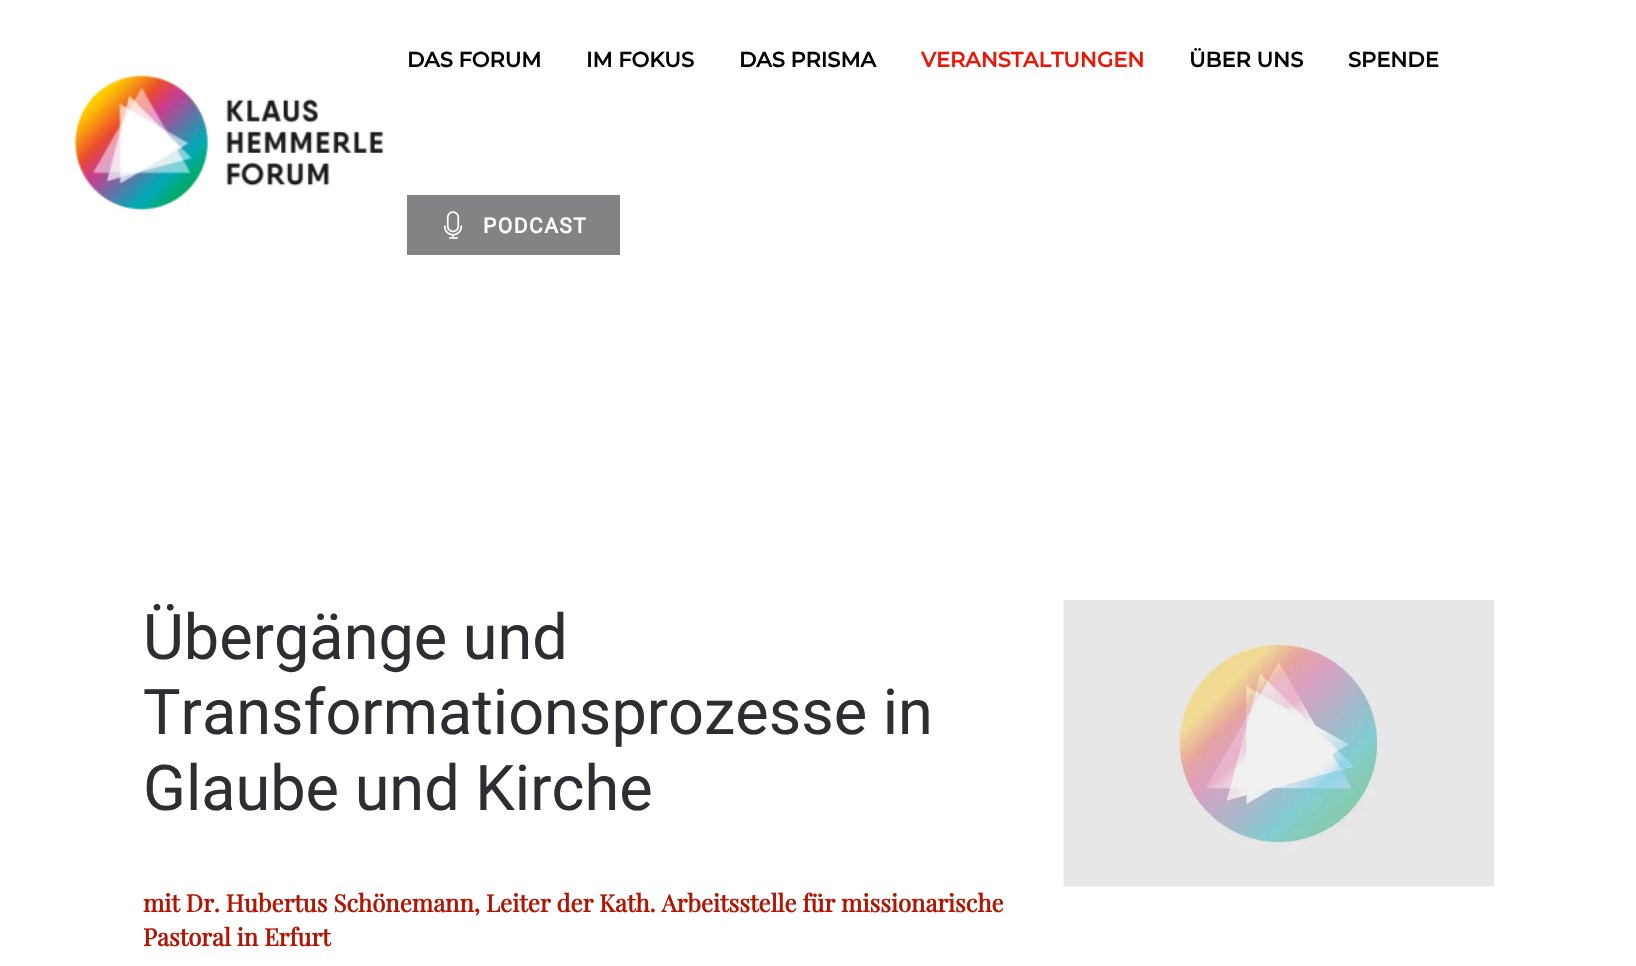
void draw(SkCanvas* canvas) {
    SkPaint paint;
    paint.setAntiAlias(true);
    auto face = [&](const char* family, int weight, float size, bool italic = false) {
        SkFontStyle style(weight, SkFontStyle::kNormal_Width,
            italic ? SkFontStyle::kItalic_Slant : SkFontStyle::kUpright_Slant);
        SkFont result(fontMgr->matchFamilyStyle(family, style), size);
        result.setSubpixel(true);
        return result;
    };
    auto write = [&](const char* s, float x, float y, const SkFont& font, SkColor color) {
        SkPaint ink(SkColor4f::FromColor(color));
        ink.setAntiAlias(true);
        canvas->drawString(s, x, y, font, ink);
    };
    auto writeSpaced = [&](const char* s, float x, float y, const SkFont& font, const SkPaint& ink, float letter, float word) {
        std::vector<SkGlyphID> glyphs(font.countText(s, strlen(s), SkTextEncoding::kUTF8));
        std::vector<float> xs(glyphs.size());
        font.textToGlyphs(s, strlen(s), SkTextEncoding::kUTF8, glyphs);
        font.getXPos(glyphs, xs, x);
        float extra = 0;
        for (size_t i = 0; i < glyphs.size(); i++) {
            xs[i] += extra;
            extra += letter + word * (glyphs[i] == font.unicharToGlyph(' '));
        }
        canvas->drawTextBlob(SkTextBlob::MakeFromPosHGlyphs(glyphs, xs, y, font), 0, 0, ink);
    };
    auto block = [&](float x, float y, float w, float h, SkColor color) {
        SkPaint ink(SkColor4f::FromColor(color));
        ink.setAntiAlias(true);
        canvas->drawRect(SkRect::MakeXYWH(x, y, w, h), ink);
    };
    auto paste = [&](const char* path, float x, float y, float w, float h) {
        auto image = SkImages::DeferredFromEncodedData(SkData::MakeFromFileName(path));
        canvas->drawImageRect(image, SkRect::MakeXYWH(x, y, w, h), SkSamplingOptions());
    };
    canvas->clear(SK_ColorWHITE);
    paste("pic1.png", 74, 74, 310, 137);
    auto kFont1 = face("Montserrat", 700, 21);
    write("DAS FORUM", 407, 67, kFont1, SkColorSetRGB(6, 0, 0));
    write("IM FOKUS", 586, 67, kFont1, SkColorSetRGB(6, 0, 0));
    write("DAS PRISMA", 739, 67, kFont1, SkColorSetRGB(6, 0, 0));
    write("VERANSTALTUNGEN", 921, 67, kFont1, SkColorSetRGB(235, 24, 7));
    write("ÜBER UNS", 1189, 67, kFont1, SkColorSetRGB(6, 0, 0));
    write("SPENDE", 1348, 67, kFont1, SkColorSetRGB(6, 0, 0));
    block(407, 195, 213, 60, SkColorSetRGB(131, 131, 133));
    paste("pic2.png", 443, 211, 20, 28);
    auto kFont2 = face("Roboto", 700, 21);
    paint.setColor(SK_ColorWHITE);
    writeSpaced("PODCAST", 483, 233, kFont2, paint, 1.5f, 0);
    auto kFont3 = face("Roboto", 400, 63);
    write("Übergänge und", 143, 659, kFont3, SkColorSetRGB(45, 46, 51));
    write("Transformationsprozesse in", 143, 734, kFont3, SkColorSetRGB(45, 46, 51));
    write("Glaube und Kirche", 143, 810, kFont3, SkColorSetRGB(45, 46, 51));
    auto kFont4 = face("Playfair Display", 700, 24);
    write("mit Dr. Hubertus Schönemann, Leiter der Kath. Arbeitsstelle für missionarische", 143, 912, kFont4, SkColorSetRGB(179, 21, 3));
    write("Pastoral in Erfurt", 143, 946, kFont4, SkColorSetRGB(179, 21, 3));
    paste("pic3.png", 1063, 600, 431, 287);
}
